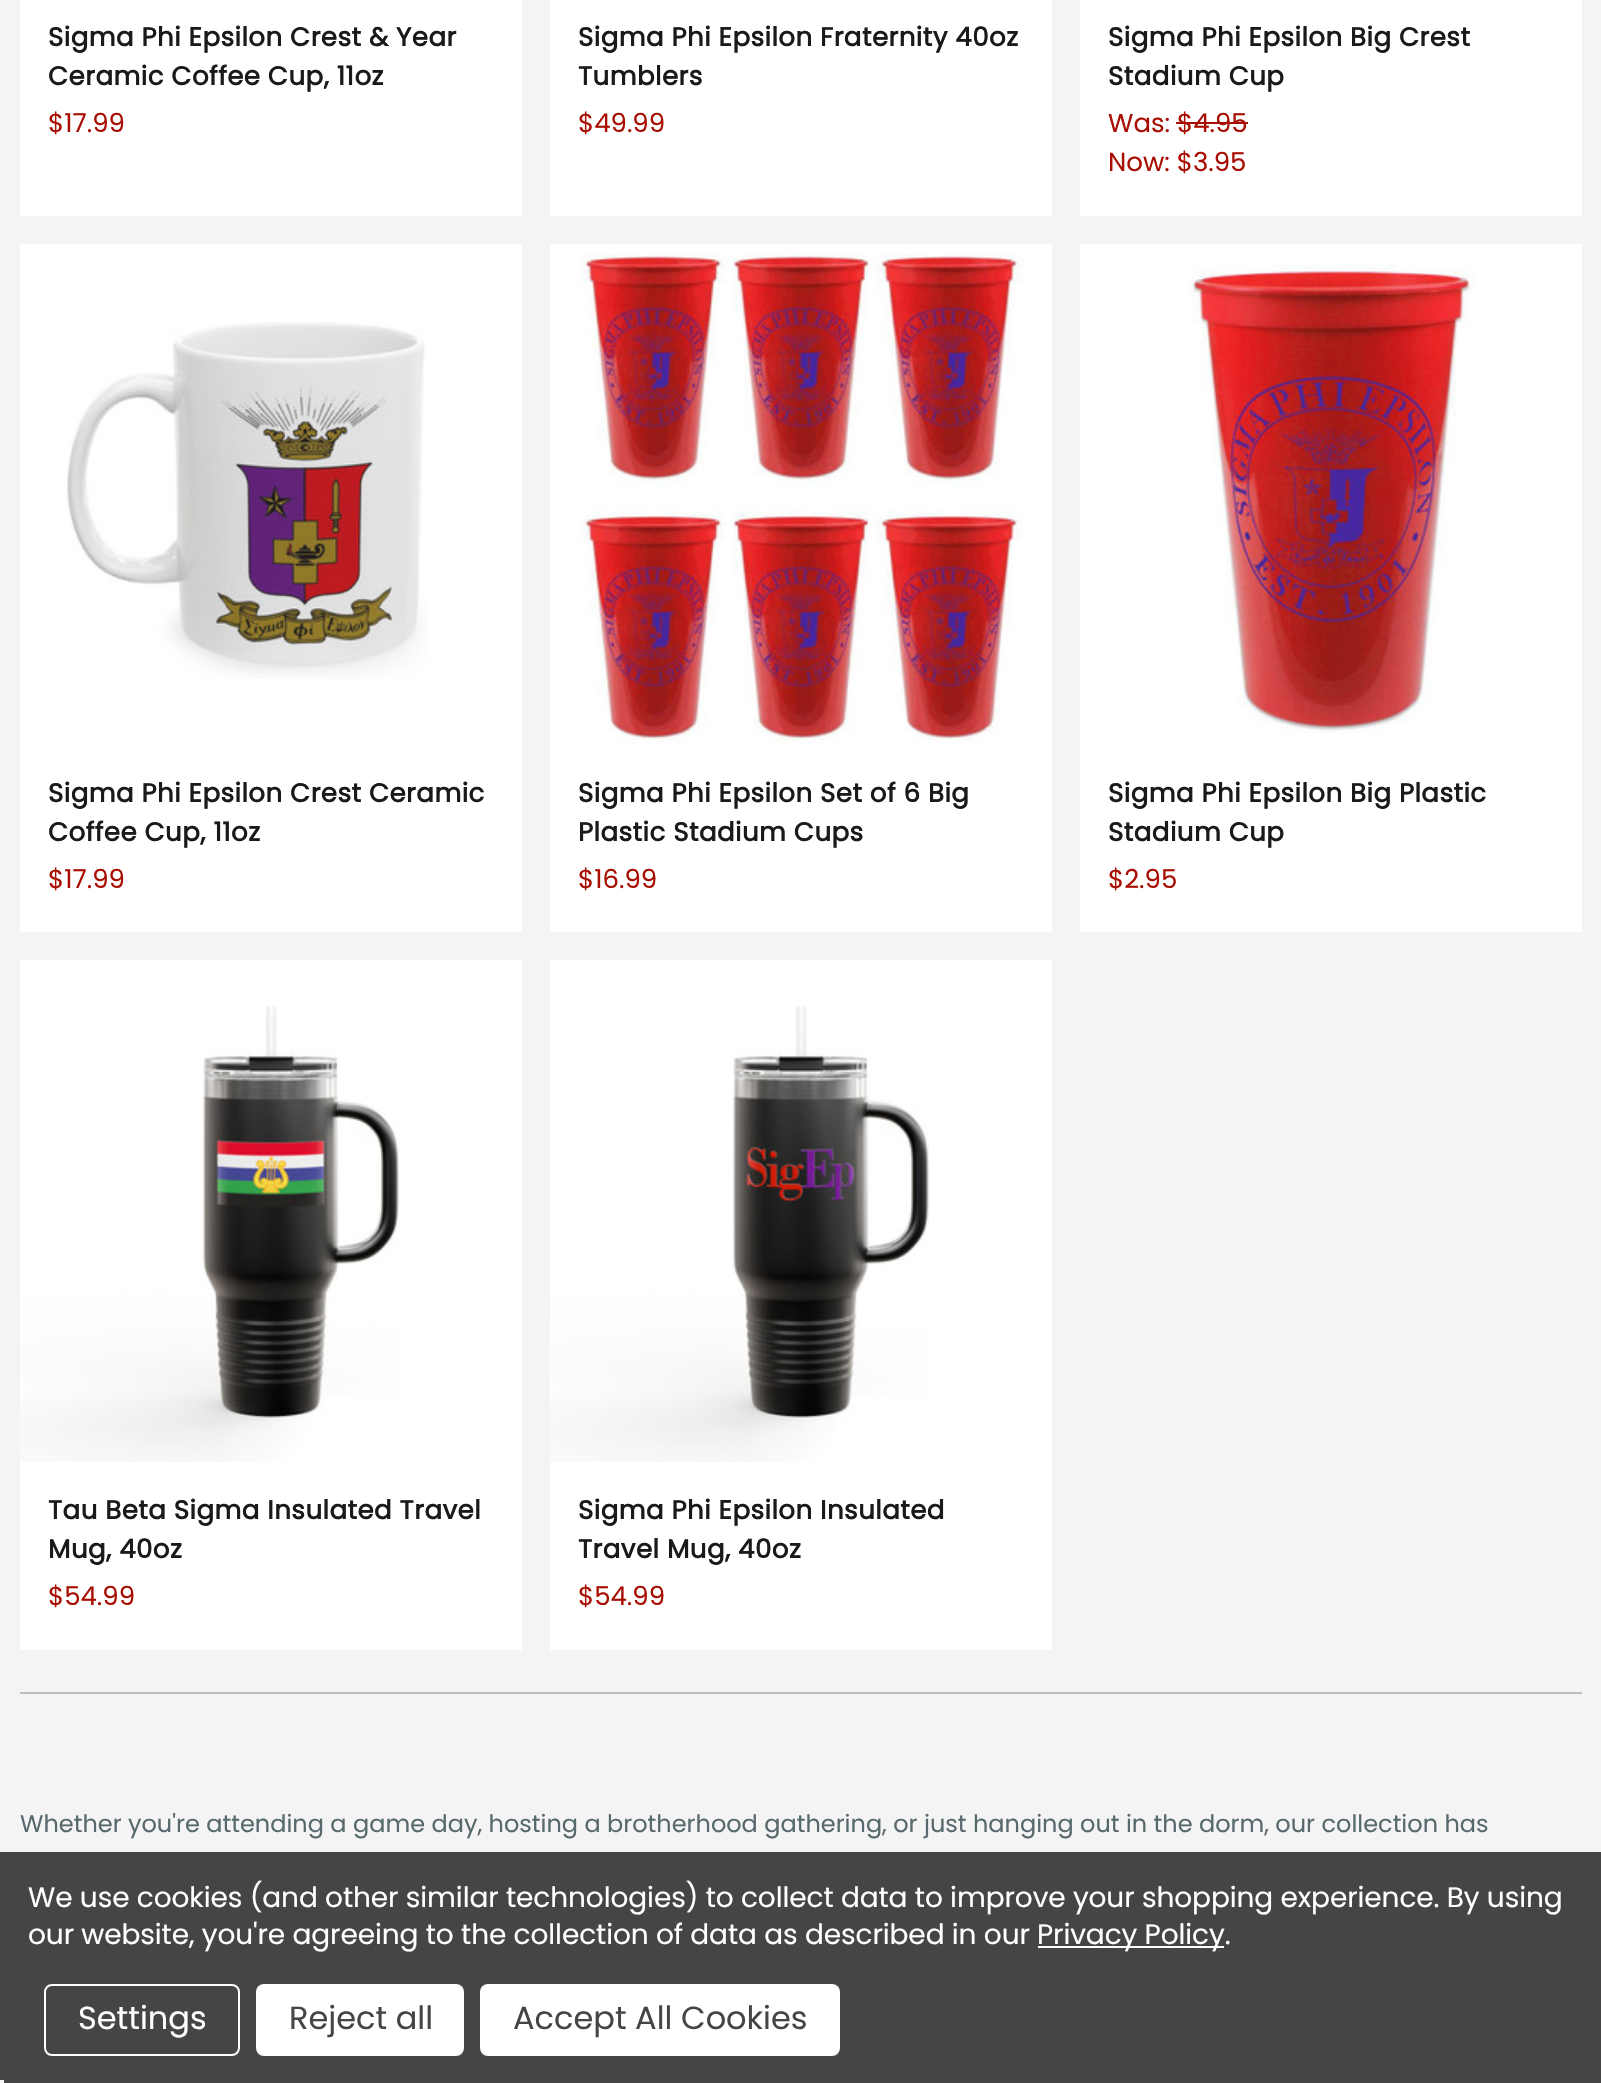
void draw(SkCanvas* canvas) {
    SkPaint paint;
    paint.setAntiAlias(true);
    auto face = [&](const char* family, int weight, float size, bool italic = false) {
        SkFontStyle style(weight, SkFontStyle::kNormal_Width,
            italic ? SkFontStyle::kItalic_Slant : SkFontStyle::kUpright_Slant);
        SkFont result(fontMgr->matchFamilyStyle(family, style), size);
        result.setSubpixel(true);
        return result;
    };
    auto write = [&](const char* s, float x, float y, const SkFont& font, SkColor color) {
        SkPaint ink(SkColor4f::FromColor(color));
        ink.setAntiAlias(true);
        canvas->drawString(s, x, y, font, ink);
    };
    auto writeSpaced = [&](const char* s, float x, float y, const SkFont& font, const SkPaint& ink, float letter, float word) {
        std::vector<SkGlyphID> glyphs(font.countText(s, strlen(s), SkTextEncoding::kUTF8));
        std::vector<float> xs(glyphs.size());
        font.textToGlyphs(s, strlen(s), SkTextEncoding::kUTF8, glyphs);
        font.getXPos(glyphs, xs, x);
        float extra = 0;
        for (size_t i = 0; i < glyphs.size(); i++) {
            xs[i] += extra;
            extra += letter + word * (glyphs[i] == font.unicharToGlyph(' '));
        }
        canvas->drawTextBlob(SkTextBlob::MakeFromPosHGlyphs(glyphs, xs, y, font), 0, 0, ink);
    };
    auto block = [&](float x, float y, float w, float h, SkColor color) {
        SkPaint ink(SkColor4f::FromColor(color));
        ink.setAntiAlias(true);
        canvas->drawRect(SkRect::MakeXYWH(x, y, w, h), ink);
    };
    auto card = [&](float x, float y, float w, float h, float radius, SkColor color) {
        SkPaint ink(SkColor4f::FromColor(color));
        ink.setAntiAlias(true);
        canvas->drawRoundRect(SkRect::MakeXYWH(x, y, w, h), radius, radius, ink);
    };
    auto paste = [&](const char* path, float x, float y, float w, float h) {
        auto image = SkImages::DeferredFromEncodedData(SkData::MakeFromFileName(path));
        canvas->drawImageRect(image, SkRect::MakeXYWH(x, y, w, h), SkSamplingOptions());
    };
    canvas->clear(SkColorSetRGB(244, 244, 244));
    block(20, 1692, 1562, 2, SkColorSetRGB(190, 190, 190));
    block(20, 0, 502, 216, SK_ColorWHITE);
    auto kFont1 = face("Poppins", 700, 26);
    paint.setColor(SkColorSetRGB(26, 26, 26));
    writeSpaced("Sigma Phi Epsilon Crest & Year", 48, 46, kFont1, paint, 0.5f, 0);
    writeSpaced("Ceramic Coffee Cup, 11oz", 48, 85, kFont1, paint, 0.5f, 0);
    auto kFont2 = face("Poppins", 400, 26);
    write("$17.99", 48, 132, kFont2, SkColorSetRGB(168, 14, 2));
    block(550, 0, 502, 216, SK_ColorWHITE);
    writeSpaced("Sigma Phi Epsilon Fraternity 40oz", 578, 46, kFont1, paint, 0.5f, 0);
    writeSpaced("Tumblers", 578, 85, kFont1, paint, 0.5f, 0);
    write("$49.99", 578, 132, kFont2, SkColorSetRGB(168, 14, 2));
    block(1080, 0, 502, 216, SK_ColorWHITE);
    writeSpaced("Sigma Phi Epsilon Big Crest", 1108, 46, kFont1, paint, 0.5f, 0);
    writeSpaced("Stadium Cup", 1108, 85, kFont1, paint, 0.5f, 0);
    write("Was: $4.95", 1108, 132, kFont2, SkColorSetRGB(168, 14, 2));
    block(1176, 122, 72, 2, SkColorSetRGB(168, 14, 2));
    write("Now: $3.95", 1108, 171, kFont2, SkColorSetRGB(168, 14, 2));
    block(20, 244, 502, 688, SK_ColorWHITE);
    paste("pic1.png", 67, 322, 361, 357);
    writeSpaced("Sigma Phi Epsilon Crest Ceramic", 48, 802, kFont1, paint, 0.5f, 0);
    writeSpaced("Coffee Cup, 11oz", 48, 841, kFont1, paint, 0.5f, 0);
    write("$17.99", 48, 888, kFont2, SkColorSetRGB(168, 14, 2));
    block(550, 244, 502, 688, SK_ColorWHITE);
    paste("pic2.png", 579, 253, 447, 493);
    writeSpaced("Sigma Phi Epsilon Set of 6 Big", 578, 802, kFont1, paint, 0.5f, 0);
    writeSpaced("Plastic Stadium Cups", 578, 841, kFont1, paint, 0.5f, 0);
    write("$16.99", 578, 888, kFont2, SkColorSetRGB(168, 14, 2));
    block(1080, 244, 502, 688, SK_ColorWHITE);
    paste("pic3.png", 1188, 264, 287, 470);
    writeSpaced("Sigma Phi Epsilon Big Plastic", 1108, 802, kFont1, paint, 0.5f, 0);
    writeSpaced("Stadium Cup", 1108, 841, kFont1, paint, 0.5f, 0);
    write("$2.95", 1108, 888, kFont2, SkColorSetRGB(168, 14, 2));
    block(20, 960, 502, 690, SK_ColorWHITE);
    paste("pic4.png", 20, 1006, 380, 456);
    writeSpaced("Tau Beta Sigma Insulated Travel", 48, 1519, kFont1, paint, 0.5f, 0);
    writeSpaced("Mug, 40oz", 48, 1558, kFont1, paint, 0.5f, 0);
    write("$54.99", 48, 1605, kFont2, SkColorSetRGB(168, 14, 2));
    block(550, 960, 502, 690, SK_ColorWHITE);
    paste("pic5.png", 550, 1006, 380, 456);
    writeSpaced("Sigma Phi Epsilon Insulated", 578, 1519, kFont1, paint, 0.5f, 0);
    writeSpaced("Travel Mug, 40oz", 578, 1558, kFont1, paint, 0.5f, 0);
    write("$54.99", 578, 1605, kFont2, SkColorSetRGB(168, 14, 2));
    auto kFont3 = face("Poppins", 400, 24);
    write("Whether you're attending a game day, hosting a brotherhood gathering, or just hanging out in the dorm, our collection has", 20, 1832, kFont3, SkColorSetRGB(87, 105, 108));
    block(0, 1852, 1601, 231, SkColorSetRGB(69, 69, 69));
    auto kFont4 = face("Poppins", 400, 28);
    paint.setColor(SK_ColorWHITE);
    writeSpaced("We use cookies (and other similar technologies) to collect data to improve your shopping experience. By using", 28, 1907, kFont4, paint, -0.1f, 0);
    writeSpaced("our website, you're agreeing to the collection of data as described in our", 28, 1944, kFont4, paint, -0.1f, 0);
    block(1038, 1946, 186, 2, SK_ColorWHITE);
    writeSpaced("Privacy Policy.", 1037, 1944, kFont4, paint, -0.1f, 0);
    paint.setStyle(SkPaint::kStroke_Style);
    paint.setStrokeWidth(2);
    canvas->drawRoundRect(SkRect::MakeXYWH(45, 1985, 194, 70), 7, 7, paint);
    auto kFont5 = face("Poppins", 400, 32);
    write("Settings", 78, 2029, kFont5, SK_ColorWHITE);
    card(256, 1984, 208, 72, 8, SK_ColorWHITE);
    write("Reject all", 289, 2029, kFont5, SkColorSetRGB(69, 69, 69));
    card(480, 1984, 360, 72, 8, SK_ColorWHITE);
    write("Accept All Cookies", 513, 2029, kFont5, SkColorSetRGB(69, 69, 69));
    block(0, 2080, 4, 3, SkColorSetRGB(245, 245, 245));
}
